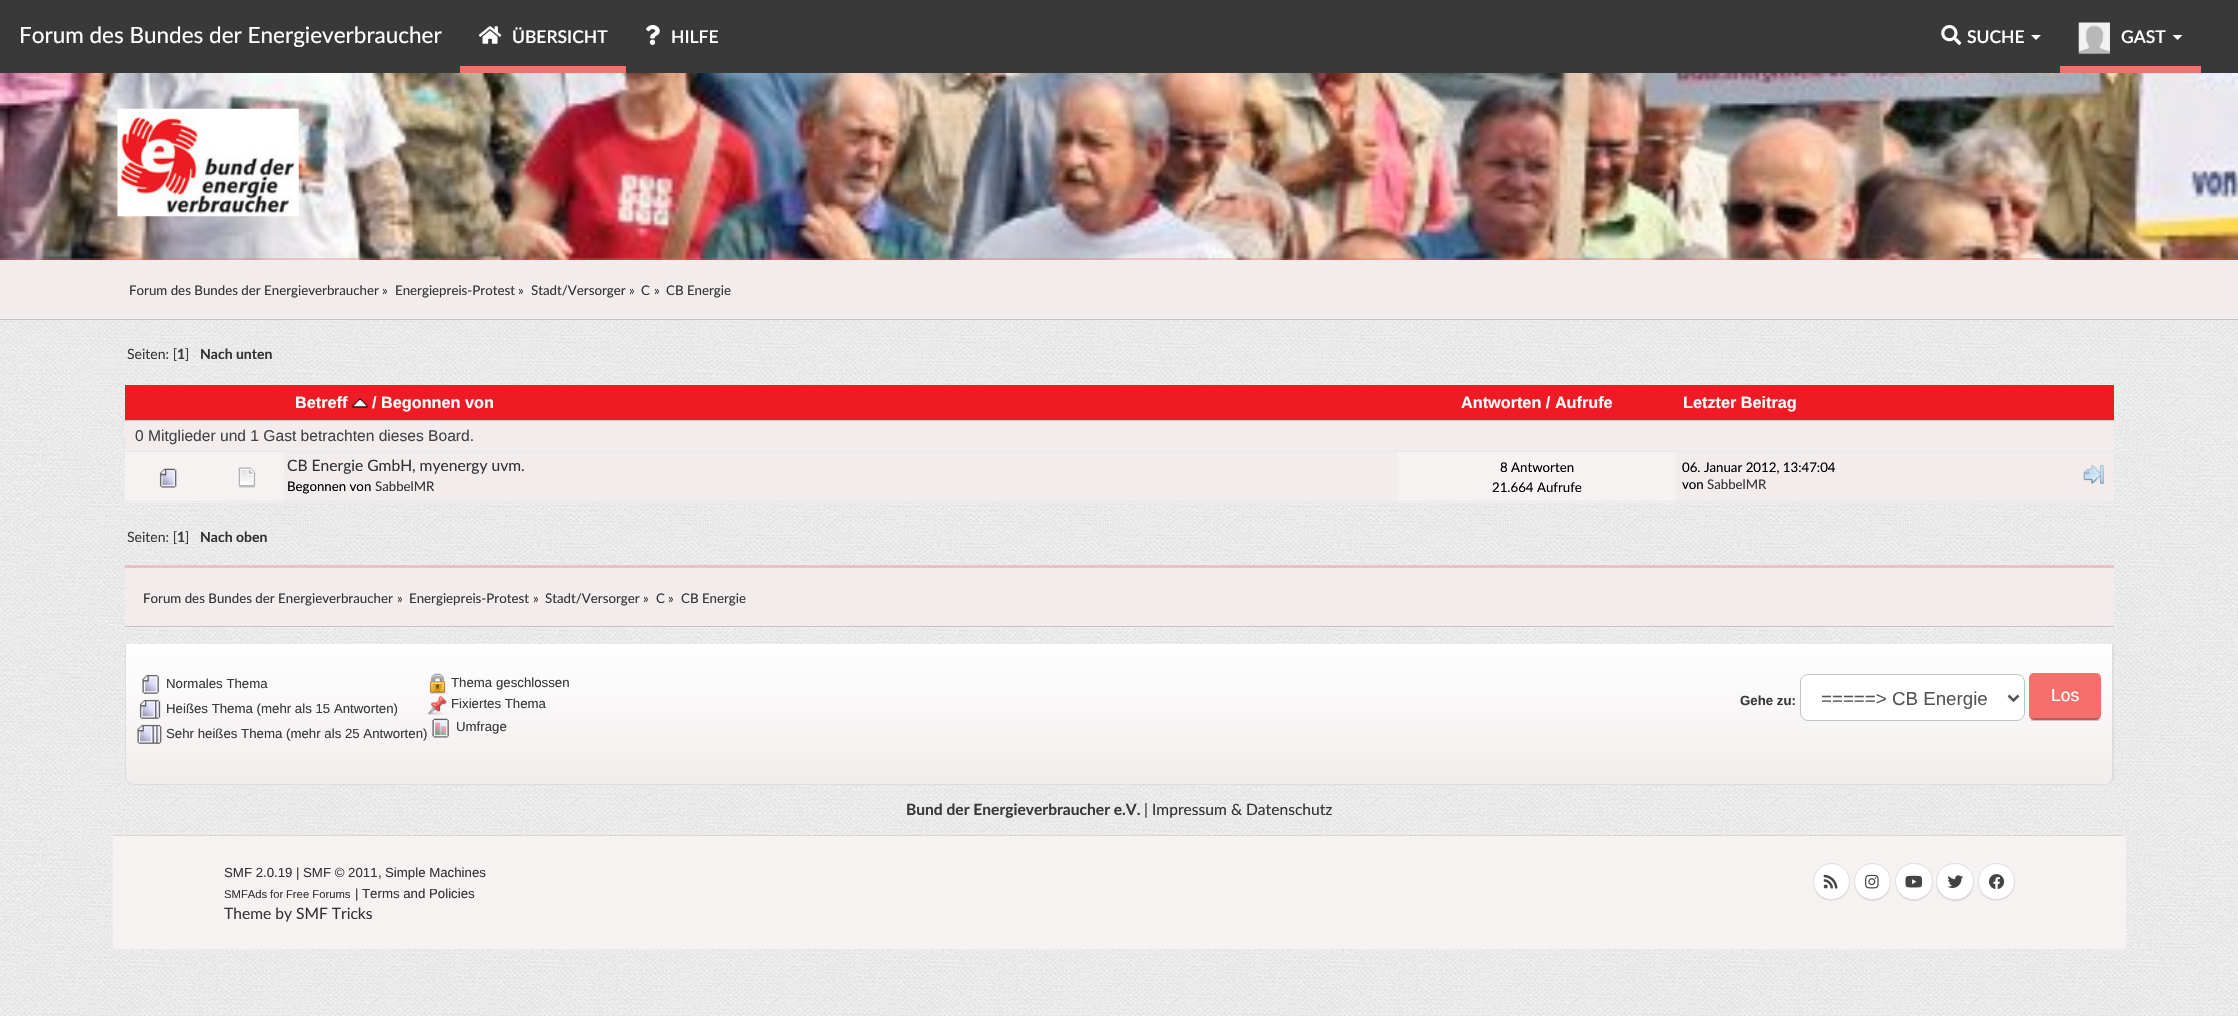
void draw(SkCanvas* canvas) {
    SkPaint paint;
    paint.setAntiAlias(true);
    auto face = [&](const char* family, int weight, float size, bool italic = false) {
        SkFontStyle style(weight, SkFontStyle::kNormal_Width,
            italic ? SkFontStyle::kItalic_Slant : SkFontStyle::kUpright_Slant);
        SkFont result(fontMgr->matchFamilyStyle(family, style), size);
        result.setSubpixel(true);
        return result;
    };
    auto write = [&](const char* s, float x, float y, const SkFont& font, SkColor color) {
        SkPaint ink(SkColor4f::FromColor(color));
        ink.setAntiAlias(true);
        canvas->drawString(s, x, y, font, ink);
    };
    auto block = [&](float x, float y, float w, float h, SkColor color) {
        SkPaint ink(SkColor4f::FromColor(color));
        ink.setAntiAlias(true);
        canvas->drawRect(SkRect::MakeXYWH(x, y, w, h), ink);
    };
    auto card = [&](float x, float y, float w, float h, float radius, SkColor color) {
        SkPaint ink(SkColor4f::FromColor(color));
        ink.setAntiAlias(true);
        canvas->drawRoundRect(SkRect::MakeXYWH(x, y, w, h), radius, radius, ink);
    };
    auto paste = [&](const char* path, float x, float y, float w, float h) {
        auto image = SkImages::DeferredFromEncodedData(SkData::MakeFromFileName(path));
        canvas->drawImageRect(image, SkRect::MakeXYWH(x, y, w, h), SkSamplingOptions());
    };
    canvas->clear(SkColorSetRGB(242, 242, 242));
    paste("pic1.png", 0, 320, 2238, 696);
    block(0, 0, 2238, 73, SkColorSetRGB(57, 57, 57));
    auto kFont1 = face("Lato", 400, 22.5f);
    write("Forum des Bundes der Energieverbraucher", 19, 43, kFont1, SK_ColorWHITE);
    block(460, 66, 166, 7, SkColorSetRGB(245, 111, 108));
    paste("pic2.png", 478, 26, 24, 18);
    auto kFont2 = face("Lato", 600, 17.5f);
    write("ÜBERSICHT", 512, 43, kFont2, SK_ColorWHITE);
    paste("pic3.png", 646, 25, 14, 20);
    write("HILFE", 671, 43, kFont2, SK_ColorWHITE);
    paste("pic4.png", 1941, 25, 21, 20);
    write("SUCHE", 1967, 43, kFont2, SK_ColorWHITE);
    paint.setColor(SK_ColorWHITE);
    canvas->drawPath(SkPathBuilder().moveTo(2031, 35).lineTo(2041, 35).lineTo(2036, 40).close().detach(), paint);
    block(2060, 66, 141, 7, SkColorSetRGB(245, 111, 108));
    paste("pic5.png", 2078, 22, 32, 32);
    write("GAST", 2121, 43, kFont2, SK_ColorWHITE);
    canvas->drawPath(SkPathBuilder().moveTo(2172.5f, 35).lineTo(2182.5f, 35).lineTo(2177.5f, 40).close().detach(), paint);
    paste("pic6.png", 0, 73, 2238, 187);
    paste("pic7.png", 117, 108, 182, 109);
    paint.setColor(SkColorSetARGB(77, 229, 107, 105));
    canvas->drawPath(SkPathBuilder().moveTo(0, 258).lineTo(0, 260).lineTo(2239, 260).lineTo(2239, 318).lineTo(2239, 258).close().detach(), paint);
    block(0, 260, 2238, 59, SkColorSetRGB(242, 236, 236));
    block(0, 319, 2238, 1, SkColorSetRGB(194, 194, 194));
    auto kFont3 = face("Lato", 400, 13.3f);
    write("Forum des Bundes der Energieverbraucher", 129, 295, kFont3, SkColorSetRGB(51, 51, 51));
    write("»", 382, 295, kFont3, SkColorSetRGB(57, 57, 57));
    write("Energiepreis-Protest", 395, 295, kFont3, SkColorSetRGB(51, 51, 51));
    write("»", 518, 295, kFont3, SkColorSetRGB(57, 57, 57));
    write("Stadt/Versorger", 531, 295, kFont3, SkColorSetRGB(51, 51, 51));
    write("»", 629, 295, kFont3, SkColorSetRGB(57, 57, 57));
    write("C", 641, 295, kFont3, SkColorSetRGB(51, 51, 51));
    write("»", 654, 295, kFont3, SkColorSetRGB(57, 57, 57));
    write("CB Energie", 666, 295, kFont3, SkColorSetRGB(51, 51, 51));
    auto kFont4 = face("Lato", 400, 14);
    write("Seiten: [", 127, 359, kFont4, SkColorSetRGB(57, 57, 57));
    auto kFont5 = face("Lato", 700, 14);
    write("1", 177, 359, kFont5, SkColorSetRGB(57, 57, 57));
    write("]", 185, 359, kFont4, SkColorSetRGB(57, 57, 57));
    write("Nach unten", 200, 359, kFont5, SkColorSetRGB(51, 51, 51));
    block(125, 385, 1989, 35, SkColorSetRGB(238, 27, 36));
    block(124, 420, 1991, 1, SkColorSetRGB(204, 204, 204));
    auto kFont6 = face("Liberation Sans", 700, 16.25f);
    write("Betreff", 295, 408, kFont6, SK_ColorWHITE);
    paste("pic8.png", 352, 398, 16, 10);
    write("/ Begonnen von", 372, 408, kFont6, SK_ColorWHITE);
    write("Antworten / Aufrufe", 1461, 408, kFont6, SK_ColorWHITE);
    write("Letzter Beitrag", 1683, 408, kFont6, SK_ColorWHITE);
    block(125, 421, 1989, 30, SkColorSetRGB(242, 236, 236));
    block(124, 451, 1991, 1, SkColorSetRGB(232, 232, 232));
    auto kFont7 = face("Liberation Sans", 400, 15.6f);
    write("0 Mitglieder und 1 Gast betrachten dieses Board.", 135, 441, kFont7, SkColorSetRGB(68, 68, 68));
    block(125, 452, 159, 51, SkColorSetRGB(247, 242, 242));
    paste("pic9.png", 159, 468, 18, 20);
    block(284, 452, 1114, 51, SkColorSetRGB(242, 236, 236));
    auto kFont8 = face("Lato", 400, 15.6f);
    write("CB Energie GmbH, myenergy uvm.", 287, 471, kFont8, SkColorSetRGB(51, 51, 51));
    auto kFont9 = face("Lato", 400, 13.25f);
    write("Begonnen von", 287, 491, kFont9, SK_ColorBLACK);
    write("SabbelMR", 375, 491, kFont9, SkColorSetRGB(51, 51, 51));
    block(1398, 452, 278, 51, SkColorSetRGB(247, 242, 242));
    write("8 Antworten", 1500, 472, kFont9, SK_ColorBLACK);
    write("21.664 Aufrufe", 1492, 492, kFont9, SK_ColorBLACK);
    block(1676, 452, 438, 51, SkColorSetRGB(242, 236, 236));
    block(124, 501, 1991, 1, SkColorSetRGB(232, 232, 232));
    write("06. Januar 2012, 13:47:04", 1682, 472, kFont9, SK_ColorBLACK);
    paste("pic10.png", 2083, 465, 21, 19);
    write("von", 1682, 489, kFont9, SK_ColorBLACK);
    write("SabbelMR", 1707, 489, kFont9, SkColorSetRGB(51, 51, 51));
    paste("pic11.png", 238, 467, 18, 21);
    write("Seiten: [", 127, 542, kFont4, SkColorSetRGB(57, 57, 57));
    write("1", 177, 542, kFont5, SkColorSetRGB(57, 57, 57));
    write("]", 185, 542, kFont4, SkColorSetRGB(57, 57, 57));
    write("Nach oben", 200, 542, kFont5, SkColorSetRGB(51, 51, 51));
    canvas->drawPath(SkPathBuilder().moveTo(125, 565).lineTo(125, 568).lineTo(2114, 568).lineTo(2114, 625).lineTo(2114, 565).close().detach(), paint);
    block(125, 568, 1989, 60, SkColorSetRGB(242, 236, 236));
    block(125, 626, 1989, 1, SkColorSetRGB(194, 194, 194));
    write("Forum des Bundes der Energieverbraucher", 143, 603, kFont3, SkColorSetRGB(51, 51, 51));
    write("»", 397, 603, kFont3, SkColorSetRGB(57, 57, 57));
    write("Energiepreis-Protest", 409, 603, kFont3, SkColorSetRGB(51, 51, 51));
    write("»", 533, 603, kFont3, SkColorSetRGB(57, 57, 57));
    write("Stadt/Versorger", 545, 603, kFont3, SkColorSetRGB(51, 51, 51));
    write("»", 643, 603, kFont3, SkColorSetRGB(57, 57, 57));
    write("C", 656, 603, kFont3, SkColorSetRGB(51, 51, 51));
    write("»", 668, 603, kFont3, SkColorSetRGB(57, 57, 57));
    write("CB Energie", 681, 603, kFont3, SkColorSetRGB(51, 51, 51));
    canvas->save();
    canvas->clipPath(SkPathBuilder().moveTo(125, 644).lineTo(2114, 644).lineTo(2114, 776).cubicTo(2114, 781, 2110, 785, 2105, 785).lineTo(134, 785).cubicTo(129, 785, 125, 781, 125, 776).close().detach(), true);
    {
        const SkColor colors[] = {SK_ColorWHITE, SkColorSetRGB(242, 237, 237)};
        const float stops[] = {0, 1};
        const SkPoint ends[] = {{1119, 644}, {1119, 784}};
        paint.setShader(SkGradientShader::MakeLinear(ends, colors, stops, 2, SkTileMode::kClamp));
        paint.setAlpha(255);
    }
    canvas->drawRect(SkRect::MakeXYWH(125, 644, 1989, 140), paint);
    canvas->restore();
    paint.setShader(nullptr);
    paint.setColor(SkColorSetRGB(221, 221, 221));
    canvas->drawPath(SkPathBuilder(SkPathFillType::kEvenOdd).moveTo(125, 644).lineTo(2114, 644).lineTo(2114, 776).cubicTo(2114, 781, 2110, 785, 2105, 785).lineTo(134, 785).cubicTo(129, 785, 125, 781, 125, 776).close().moveTo(126, 644).lineTo(2112, 644).lineTo(2112, 776).cubicTo(2112, 780, 2109, 784, 2105, 784).lineTo(134, 784).cubicTo(130, 784, 126, 780, 126, 776).close().detach(), paint);
    paste("pic12.png", 142, 674, 17, 20);
    auto kFont10 = face("Liberation Sans", 400, 13.25f);
    write("Normales Thema", 166, 688, kFont10, SkColorSetRGB(57, 57, 57));
    paste("pic13.png", 139, 699, 22, 20);
    write("Heißes Thema (mehr als 15 Antworten)", 166, 713, kFont10, SkColorSetRGB(57, 57, 57));
    paste("pic14.png", 137, 724, 25, 20);
    write("Sehr heißes Thema (mehr als 25 Antworten)", 166, 738, kFont10, SkColorSetRGB(57, 57, 57));
    paste("pic15.png", 429, 673, 17, 21);
    write("Thema geschlossen", 451, 687, kFont10, SkColorSetRGB(57, 57, 57));
    paste("pic16.png", 427, 696, 20, 19);
    write("Fixiertes Thema", 451, 708, kFont10, SkColorSetRGB(57, 57, 57));
    paste("pic17.png", 432, 718, 17, 20);
    write("Umfrage", 456, 731, kFont10, SkColorSetRGB(57, 57, 57));
    auto kFont11 = face("Liberation Sans", 700, 13.25f);
    write("Gehe zu:", 1740, 705, kFont11, SkColorSetRGB(57, 57, 57));
    paint.setColor(SK_ColorWHITE);
    canvas->drawRoundRect(SkRect::MakeXYWH(1800.5f, 674.5f, 224, 46), 7.5f, 7.5f, paint);
    paint.setStyle(SkPaint::kStroke_Style);
    paint.setStrokeWidth(1);
    paint.setColor(SkColorSetRGB(189, 195, 199));
    canvas->drawRoundRect(SkRect::MakeXYWH(1800.5f, 674.5f, 224, 46), 7.5f, 7.5f, paint);
    paint.setStrokeWidth(2.5f);
    paint.setColor(SkColorSetRGB(85, 85, 85));
    canvas->drawPath(SkPathBuilder().moveTo(2008.5f, 695.5f).lineTo(2013.5f, 700.5f).lineTo(2018.5f, 695.5f).detach(), paint);
    auto kFont12 = face("Liberation Sans", 400, 18.75f);
    write("=====> CB Energie", 1821, 705, kFont12, SkColorSetRGB(85, 85, 85));
    card(2029, 673, 72, 47, 5, SkColorSetRGB(245, 111, 108));
    block(2031, 718, 68, 3, SkColorSetARGB(51, 0, 0, 0));
    auto kFont13 = face("Liberation Sans", 400, 17.5f);
    write("Los", 2051, 701, kFont13, SK_ColorWHITE);
    auto kFont14 = face("Lato", 700, 15.6f);
    write("Bund der Energieverbraucher e.V.", 906, 815, kFont14, SkColorSetRGB(57, 57, 57));
    write("|", 1144, 815, kFont8, SkColorSetRGB(57, 57, 57));
    write("Impressum & Datenschutz", 1152, 815, kFont8, SkColorSetRGB(51, 51, 51));
    block(113, 835, 2013, 1, SkColorSetARGB(51, 229, 107, 105));
    block(113, 836, 2013, 113, SkColorSetRGB(247, 242, 242));
    write("SMF 2.0.19", 224, 877, kFont10, SkColorSetRGB(51, 51, 51));
    write("|", 296, 877, kFont10, SkColorSetRGB(57, 57, 57));
    write("SMF © 2011", 303, 877, kFont10, SkColorSetRGB(51, 51, 51));
    write(",", 378, 877, kFont10, SkColorSetRGB(57, 57, 57));
    write("Simple Machines", 385, 877, kFont10, SkColorSetRGB(51, 51, 51));
    auto kFont15 = face("Liberation Sans", 400, 11.25f);
    write("SMFAds", 224, 898, kFont15, SkColorSetRGB(51, 51, 51));
    write("for", 270, 898, kFont15, SkColorSetRGB(57, 57, 57));
    write("Free Forums", 286, 898, kFont15, SkColorSetRGB(51, 51, 51));
    write("|", 355, 898, kFont10, SkColorSetRGB(57, 57, 57));
    write("Terms and Policies", 362, 898, kFont10, SkColorSetRGB(51, 51, 51));
    write("Theme by", 224, 919, kFont8, SkColorSetRGB(57, 57, 57));
    write("SMF Tricks", 296, 919, kFont8, SkColorSetRGB(51, 51, 51));
    paint.setStyle(SkPaint::kFill_Style);
    paint.setColor(SkColorSetRGB(218, 214, 214));
    canvas->drawPath(SkPathBuilder().moveTo(1814, 889).cubicTo(1821.5f, 908, 1850.5f, 902.5f, 1850, 882).cubicTo(1849.5f, 901.5f, 1822.5f, 906.5f, 1814, 889).close().detach(), paint);
    paint.setColor(SK_ColorWHITE);
    canvas->drawCircle(1831.5f, 881.5f, 18, paint);
    paint.setStyle(SkPaint::kStroke_Style);
    paint.setStrokeWidth(1);
    paint.setColor(SkColorSetRGB(221, 221, 221));
    canvas->drawCircle(1831.5f, 881.5f, 18, paint);
    paste("pic18.png", 1823, 874, 15, 15);
    paint.setStyle(SkPaint::kFill_Style);
    paint.setColor(SkColorSetRGB(218, 214, 214));
    canvas->drawPath(SkPathBuilder().moveTo(1854.5f, 885.5f).cubicTo(1857.5f, 906, 1887.5f, 906, 1890.5f, 885.5f).cubicTo(1886, 904.5f, 1859, 904.5f, 1854.5f, 885.5f).close().detach(), paint);
    paint.setColor(SK_ColorWHITE);
    canvas->drawCircle(1872.5f, 881.5f, 18, paint);
    paint.setStyle(SkPaint::kStroke_Style);
    paint.setColor(SkColorSetRGB(221, 221, 221));
    canvas->drawCircle(1872.5f, 881.5f, 18, paint);
    paste("pic19.png", 1865, 874, 14, 15);
    paint.setStyle(SkPaint::kFill_Style);
    paint.setColor(SkColorSetRGB(218, 214, 214));
    canvas->drawPath(SkPathBuilder().moveTo(1895, 882).cubicTo(1895, 887, 1897, 892, 1900.5f, 895.5f).cubicTo(1915, 910, 1939.5f, 894, 1931.5f, 875).cubicTo(1937.5f, 893.5f, 1915, 908.5f, 1900.5f, 894.5f).cubicTo(1897, 891.5f, 1895, 886.5f, 1895, 882).close().detach(), paint);
    paint.setColor(SK_ColorWHITE);
    canvas->drawRoundRect(SkRect::MakeXYWH(1895.5f, 863.5f, 37, 36), 18, 18, paint);
    paint.setStyle(SkPaint::kStroke_Style);
    paint.setColor(SkColorSetRGB(221, 221, 221));
    canvas->drawRoundRect(SkRect::MakeXYWH(1895.5f, 863.5f, 37, 36), 18, 18, paint);
    paste("pic20.png", 1905, 875, 18, 13);
    paint.setStyle(SkPaint::kFill_Style);
    paint.setColor(SkColorSetRGB(218, 214, 214));
    canvas->drawPath(SkPathBuilder().moveTo(1936.5f, 878.5f).cubicTo(1932, 898.5f, 1959.5f, 910, 1971, 893).cubicTo(1973.5f, 888.5f, 1974.5f, 883, 1973.5f, 878.5f).cubicTo(1974.5f, 883, 1973, 888, 1970.5f, 891.5f).cubicTo(1959.5f, 908.5f, 1933.5f, 897.5f, 1936.5f, 878.5f).close().detach(), paint);
    paint.setColor(SK_ColorWHITE);
    canvas->drawRoundRect(SkRect::MakeXYWH(1936.5f, 863.5f, 37, 36), 18, 18, paint);
    paint.setStyle(SkPaint::kStroke_Style);
    paint.setColor(SkColorSetRGB(221, 221, 221));
    canvas->drawRoundRect(SkRect::MakeXYWH(1936.5f, 863.5f, 37, 36), 18, 18, paint);
    paste("pic21.png", 1947, 875, 16, 13);
    paint.setStyle(SkPaint::kFill_Style);
    paint.setColor(SkColorSetRGB(218, 214, 214));
    canvas->drawPath(SkPathBuilder().moveTo(1979, 889).cubicTo(1986.5f, 908, 2015.5f, 902.5f, 2015, 882).cubicTo(2014.5f, 901.5f, 1987.5f, 906.5f, 1979, 889).close().detach(), paint);
    paint.setColor(SK_ColorWHITE);
    canvas->drawCircle(1996.5f, 881.5f, 18, paint);
    paint.setStyle(SkPaint::kStroke_Style);
    paint.setColor(SkColorSetRGB(221, 221, 221));
    canvas->drawCircle(1996.5f, 881.5f, 18, paint);
    paste("pic22.png", 1989, 874, 16, 16);
}
